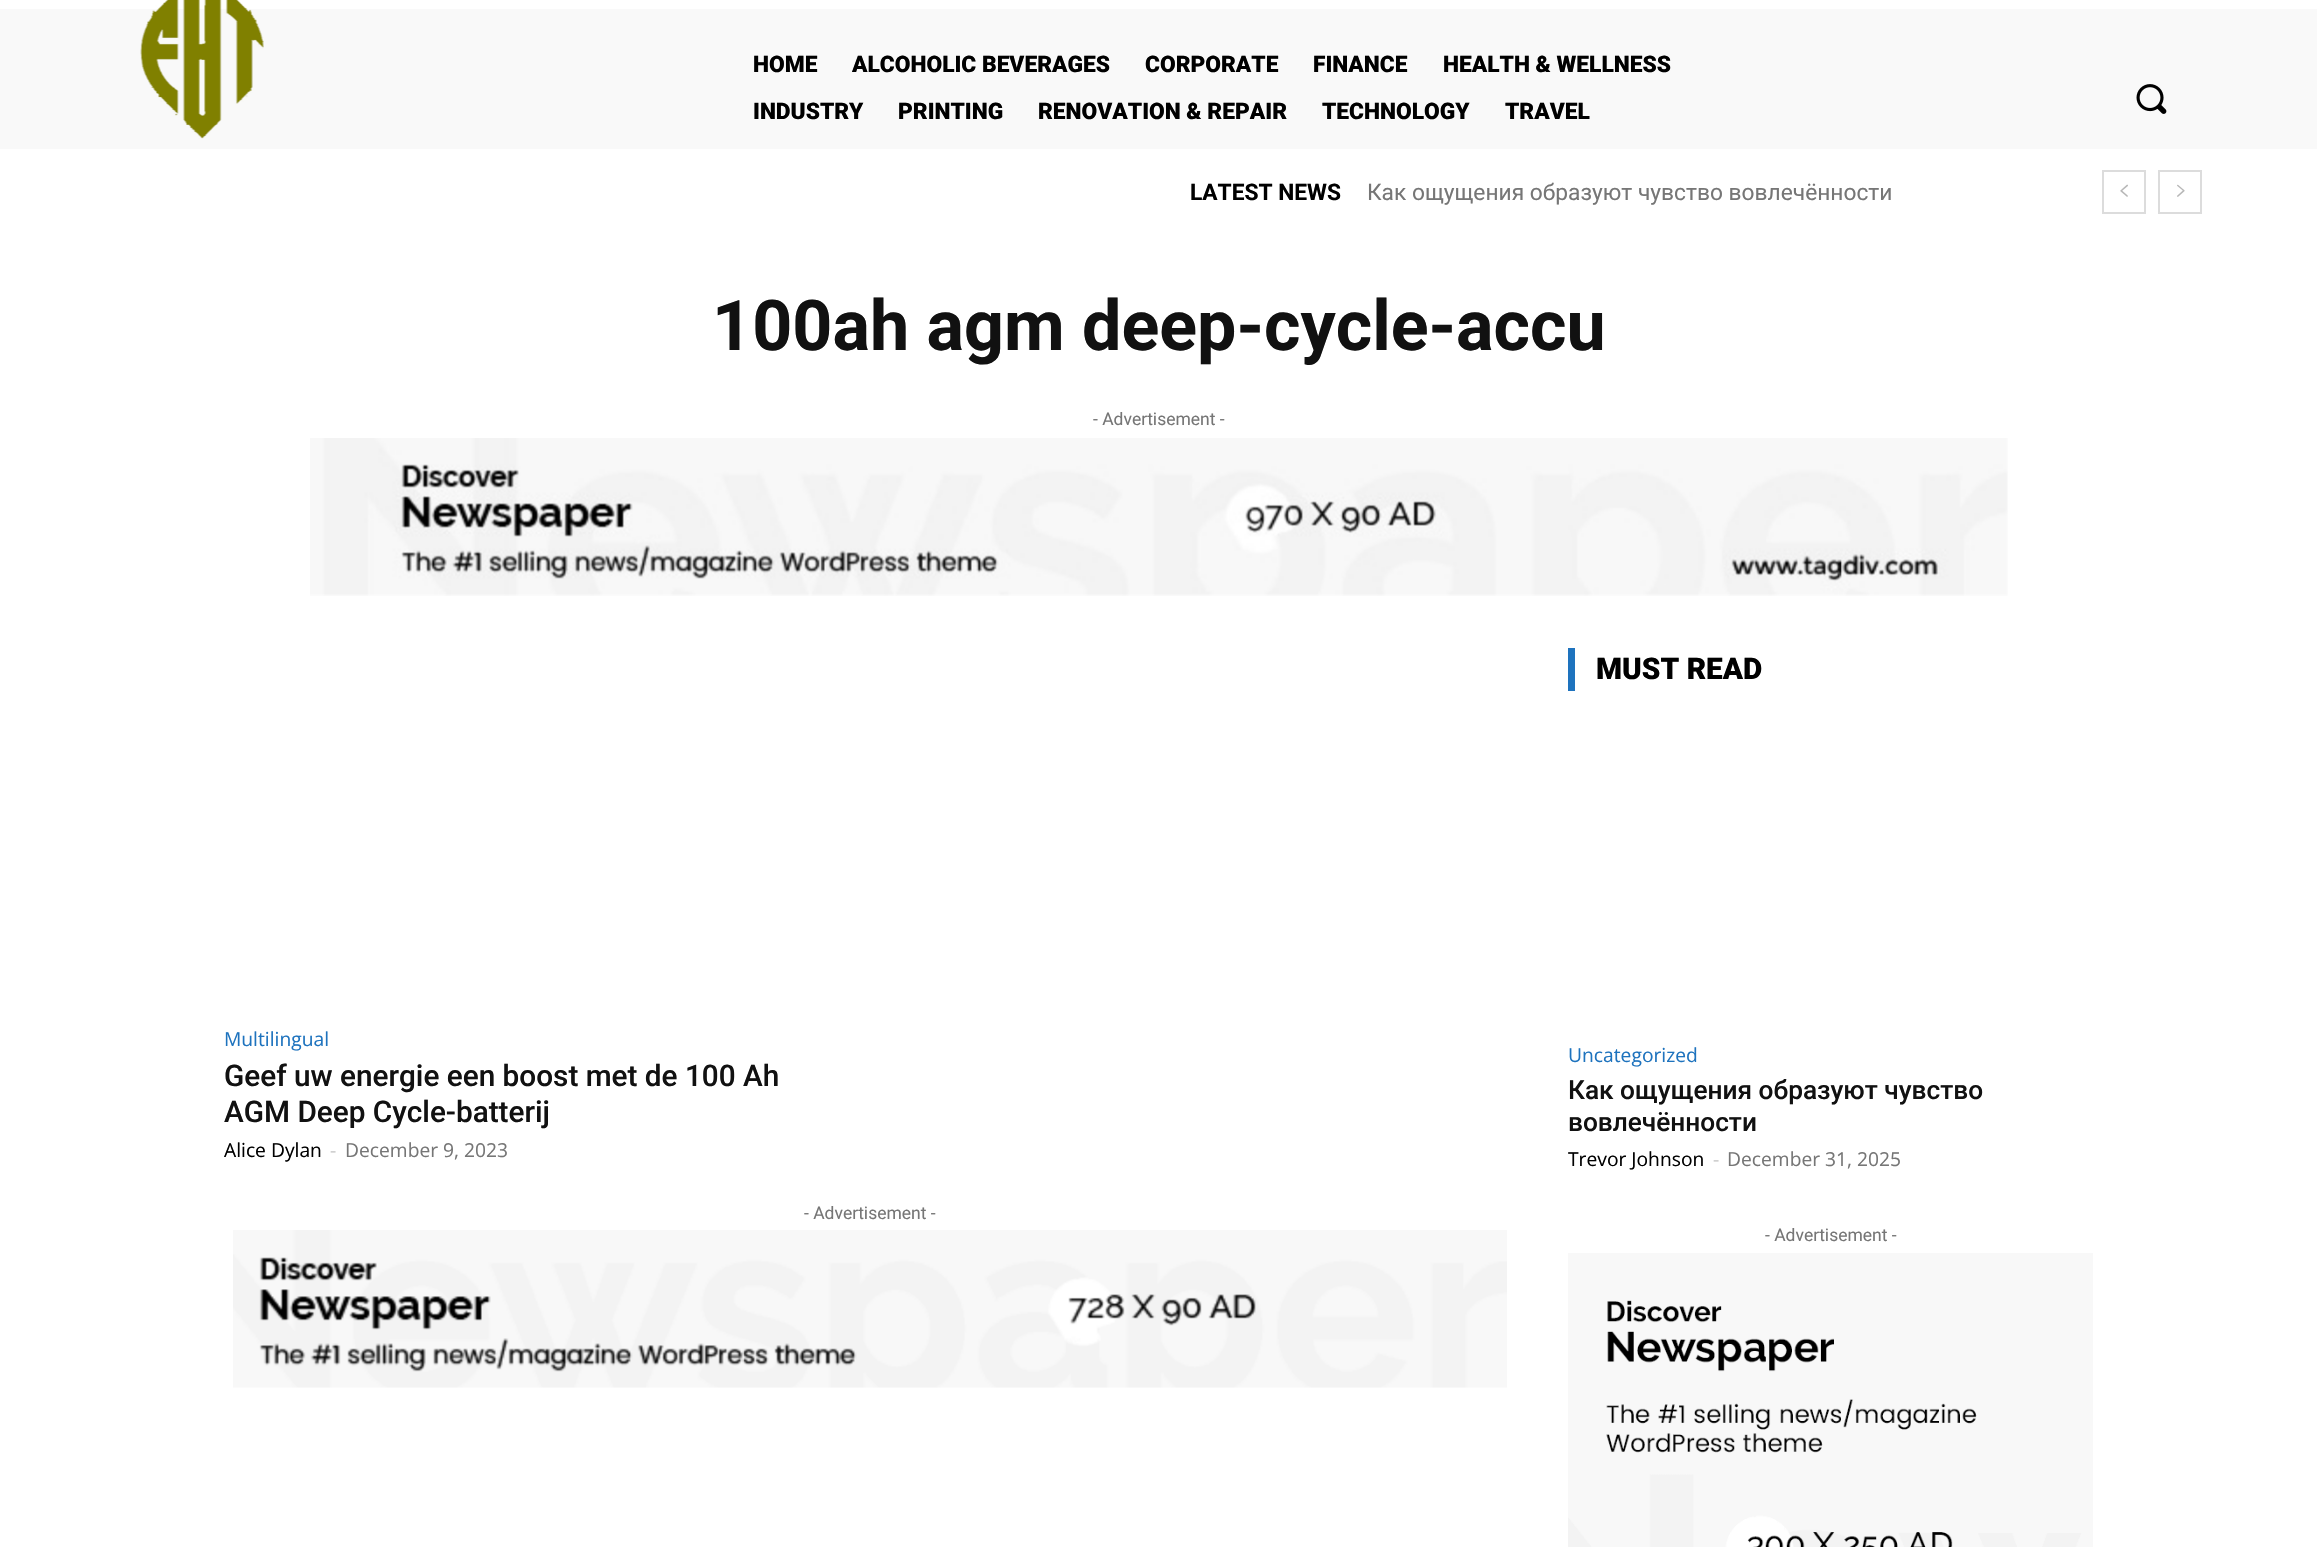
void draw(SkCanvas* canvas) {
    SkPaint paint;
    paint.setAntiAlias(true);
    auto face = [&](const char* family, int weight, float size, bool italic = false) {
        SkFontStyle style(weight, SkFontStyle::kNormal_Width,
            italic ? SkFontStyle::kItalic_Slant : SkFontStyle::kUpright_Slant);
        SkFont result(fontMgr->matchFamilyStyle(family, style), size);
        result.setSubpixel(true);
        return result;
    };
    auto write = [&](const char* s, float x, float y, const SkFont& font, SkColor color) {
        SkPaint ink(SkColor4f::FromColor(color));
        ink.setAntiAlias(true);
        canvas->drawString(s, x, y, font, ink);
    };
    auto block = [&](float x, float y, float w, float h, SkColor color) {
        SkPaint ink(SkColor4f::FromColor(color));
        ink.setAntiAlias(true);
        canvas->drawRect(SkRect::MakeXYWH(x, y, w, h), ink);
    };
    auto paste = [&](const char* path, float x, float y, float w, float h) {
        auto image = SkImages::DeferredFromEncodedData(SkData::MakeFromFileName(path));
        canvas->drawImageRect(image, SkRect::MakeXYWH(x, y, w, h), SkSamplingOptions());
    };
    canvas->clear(SK_ColorWHITE);
    block(0, 9, 2317, 140, SkColorSetRGB(249, 249, 249));
    paste("pic1.png", 140, 0, 124, 139);
    auto kFont1 = face("Roboto", 900, 22.75f);
    write("HOME", 753, 72, kFont1, SK_ColorBLACK);
    write("ALCOHOLIC BEVERAGES", 852, 72, kFont1, SK_ColorBLACK);
    write("CORPORATE", 1145, 72, kFont1, SK_ColorBLACK);
    write("FINANCE", 1313, 72, kFont1, SK_ColorBLACK);
    write("HEALTH & WELLNESS", 1443, 72, kFont1, SK_ColorBLACK);
    write("INDUSTRY", 753, 119, kFont1, SK_ColorBLACK);
    write("PRINTING", 898, 119, kFont1, SK_ColorBLACK);
    write("RENOVATION & REPAIR", 1038, 119, kFont1, SK_ColorBLACK);
    write("TECHNOLOGY", 1322, 119, kFont1, SK_ColorBLACK);
    write("TRAVEL", 1505, 119, kFont1, SK_ColorBLACK);
    paste("pic2.png", 2136, 84, 31, 30);
    auto kFont2 = face("Roboto", 700, 22.75f);
    write("LATEST NEWS", 1190, 200, kFont2, SK_ColorBLACK);
    auto kFont3 = face("Roboto", 400, 22.75f);
    write("Как ощущения образуют чувство вовлечённости", 1367, 200, kFont3, SkColorSetRGB(118, 118, 118));
    paint.setStyle(SkPaint::kStroke_Style);
    paint.setStrokeWidth(2);
    paint.setColor(SkColorSetRGB(220, 220, 220));
    canvas->drawRect(SkRect::MakeXYWH(2103, 171, 42, 42), paint);
    paste("pic3.png", 2120, 184, 8, 13);
    canvas->drawRect(SkRect::MakeXYWH(2159, 171, 42, 42), paint);
    paste("pic4.png", 2177, 184, 8, 13);
    auto kFont4 = face("Roboto", 700, 70);
    write("100ah agm deep-cycle-accu", 712, 350, kFont4, SkColorSetRGB(17, 17, 17));
    auto kFont5 = face("Roboto", 400, 17.5f);
    write("- Advertisement -", 1093, 425, kFont5, SkColorSetRGB(118, 118, 118));
    paste("pic5.png", 310, 438, 1698, 158);
    auto kFont6 = face("Open Sans", 400, 19.25f);
    write("Multilingual", 224, 1046, kFont6, SkColorSetRGB(30, 115, 190));
    auto kFont7 = face("Roboto", 500, 29.75f);
    write("Geef uw energie een boost met de 100 Ah", 224, 1086, kFont7, SkColorSetRGB(17, 17, 17));
    write("AGM Deep Cycle-batterij", 224, 1122, kFont7, SkColorSetRGB(17, 17, 17));
    write("Alice Dylan", 224, 1157, kFont6, SK_ColorBLACK);
    write("-", 330, 1157, kFont6, SkColorSetRGB(204, 204, 204));
    write("December 9, 2023", 345, 1157, kFont6, SkColorSetRGB(118, 118, 118));
    write("- Advertisement -", 804, 1219, kFont5, SkColorSetRGB(118, 118, 118));
    paste("pic6.png", 233, 1230, 1274, 158);
    block(1568, 648, 7, 43, SkColorSetRGB(30, 115, 190));
    auto kFont8 = face("Roboto", 900, 29.75f);
    write("MUST READ", 1596, 679, kFont8, SK_ColorBLACK);
    write("Uncategorized", 1568, 1062, kFont6, SkColorSetRGB(30, 115, 190));
    auto kFont9 = face("Roboto", 500, 26.25f);
    write("Как ощущения образуют чувство", 1568, 1099, kFont9, SkColorSetRGB(17, 17, 17));
    write("вовлечённости", 1568, 1131, kFont9, SkColorSetRGB(17, 17, 17));
    write("Trevor Johnson", 1568, 1166, kFont6, SK_ColorBLACK);
    write("-", 1713, 1166, kFont6, SkColorSetRGB(204, 204, 204));
    write("December 31, 2025", 1727, 1166, kFont6, SkColorSetRGB(118, 118, 118));
    write("- Advertisement -", 1765, 1241, kFont5, SkColorSetRGB(118, 118, 118));
    paste("pic7.png", 1568, 1253, 525, 294);
}
